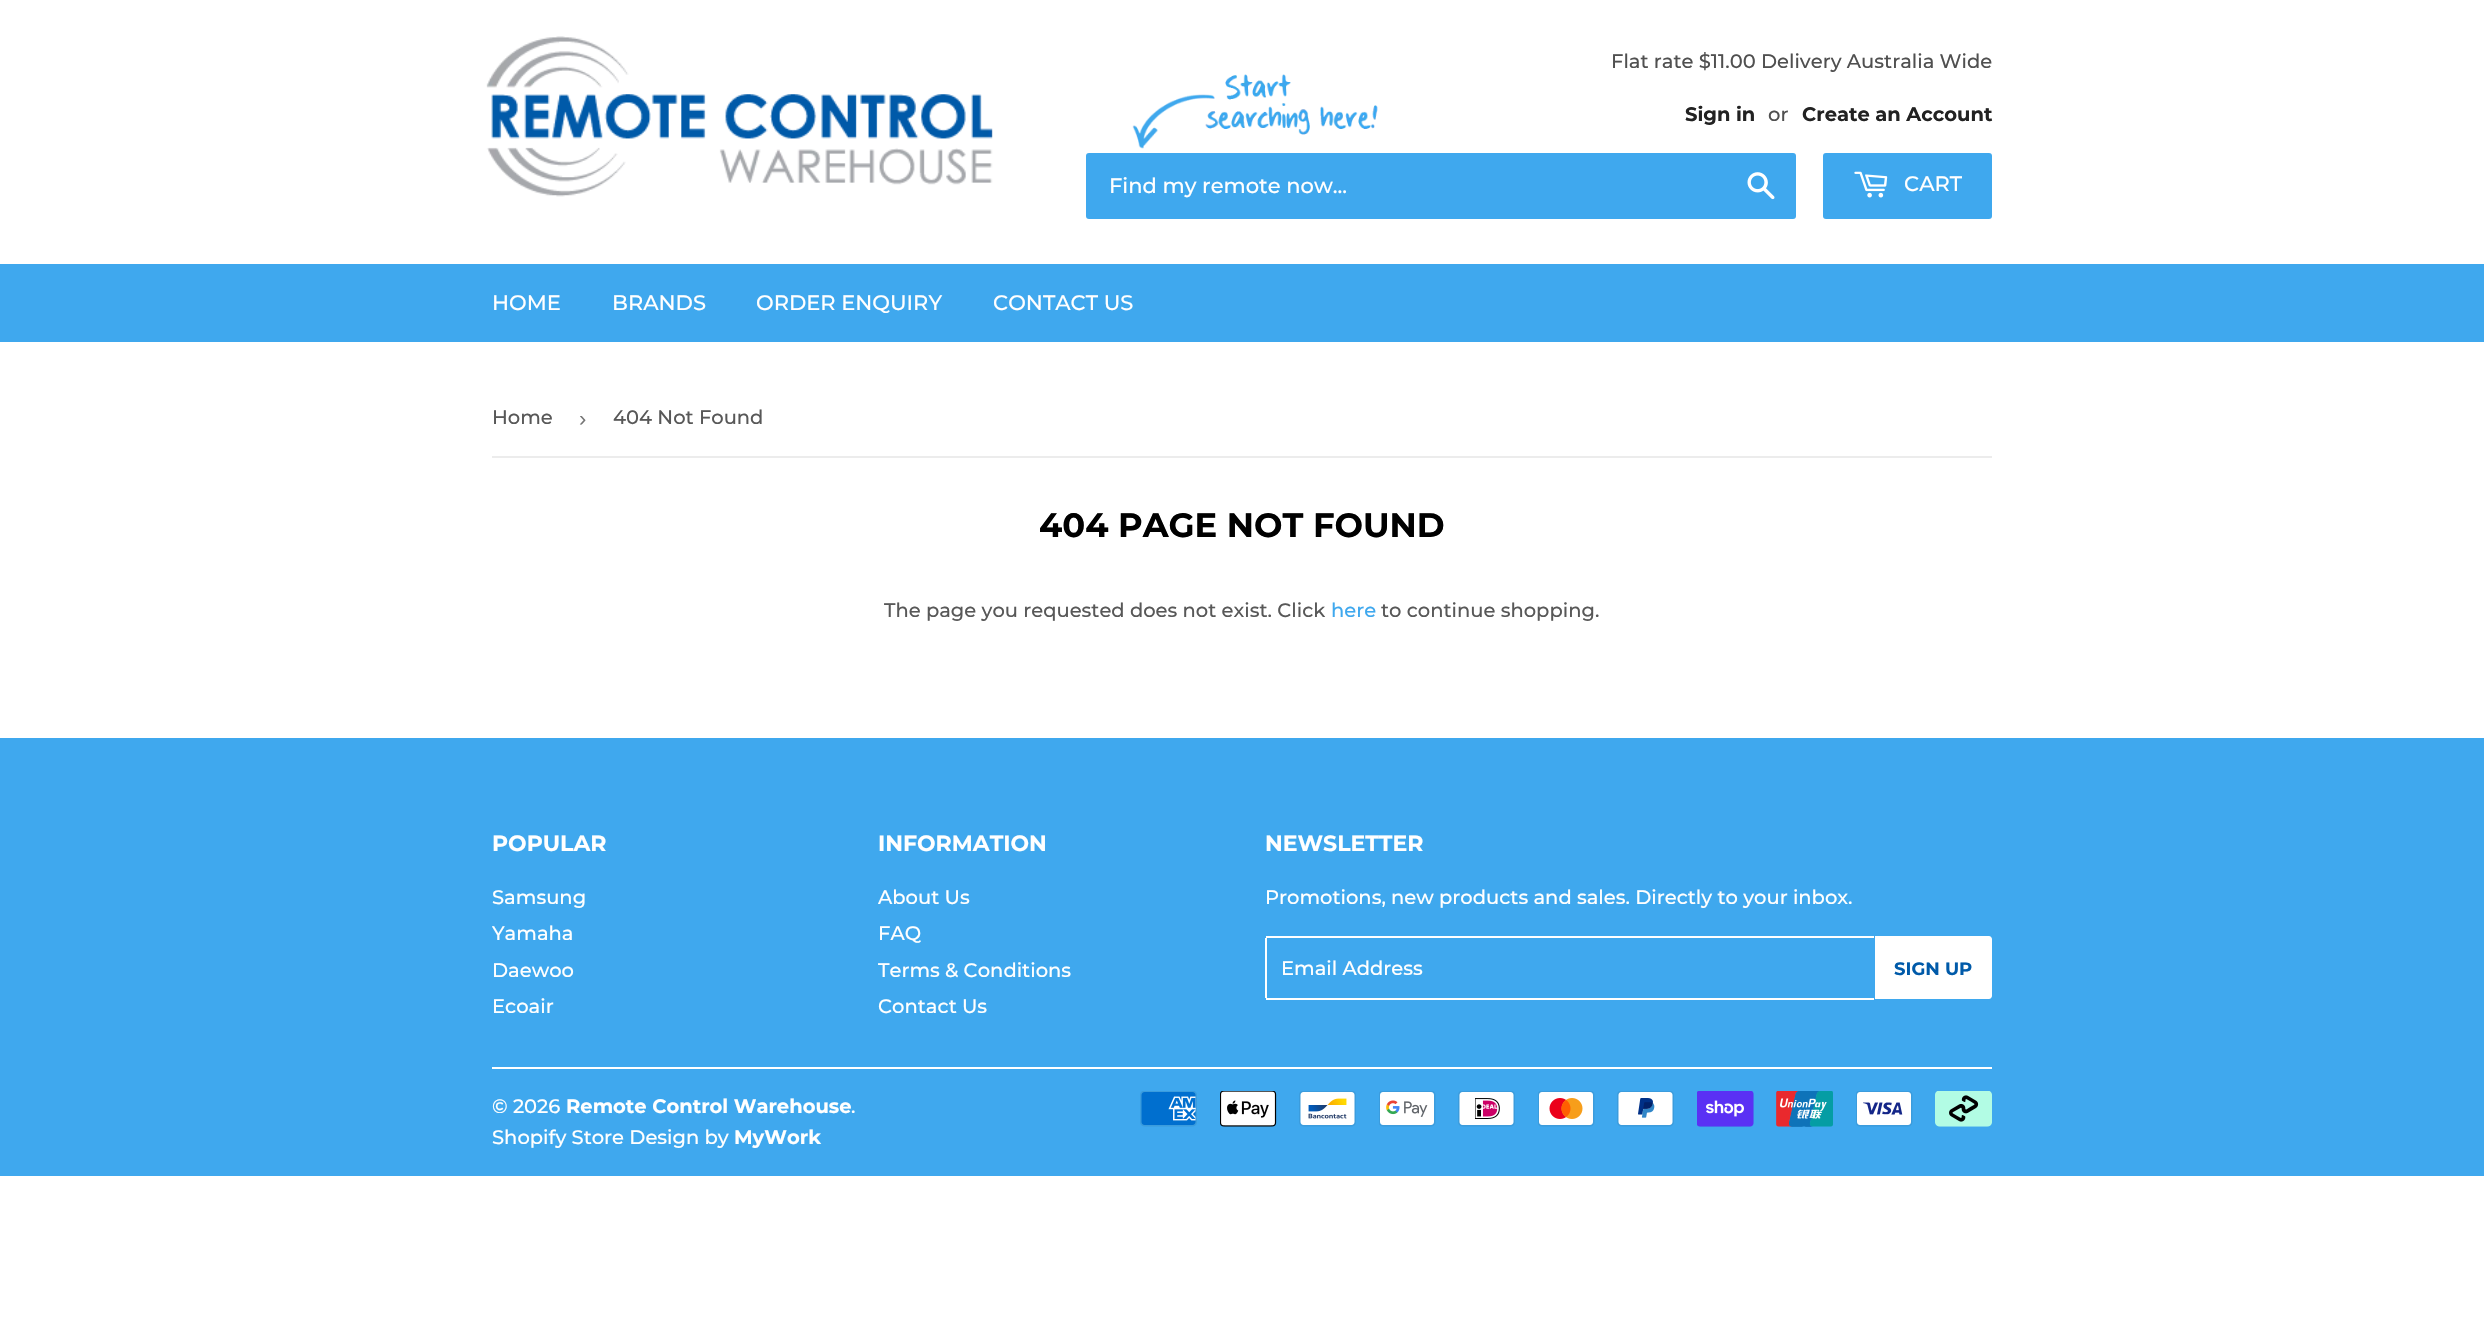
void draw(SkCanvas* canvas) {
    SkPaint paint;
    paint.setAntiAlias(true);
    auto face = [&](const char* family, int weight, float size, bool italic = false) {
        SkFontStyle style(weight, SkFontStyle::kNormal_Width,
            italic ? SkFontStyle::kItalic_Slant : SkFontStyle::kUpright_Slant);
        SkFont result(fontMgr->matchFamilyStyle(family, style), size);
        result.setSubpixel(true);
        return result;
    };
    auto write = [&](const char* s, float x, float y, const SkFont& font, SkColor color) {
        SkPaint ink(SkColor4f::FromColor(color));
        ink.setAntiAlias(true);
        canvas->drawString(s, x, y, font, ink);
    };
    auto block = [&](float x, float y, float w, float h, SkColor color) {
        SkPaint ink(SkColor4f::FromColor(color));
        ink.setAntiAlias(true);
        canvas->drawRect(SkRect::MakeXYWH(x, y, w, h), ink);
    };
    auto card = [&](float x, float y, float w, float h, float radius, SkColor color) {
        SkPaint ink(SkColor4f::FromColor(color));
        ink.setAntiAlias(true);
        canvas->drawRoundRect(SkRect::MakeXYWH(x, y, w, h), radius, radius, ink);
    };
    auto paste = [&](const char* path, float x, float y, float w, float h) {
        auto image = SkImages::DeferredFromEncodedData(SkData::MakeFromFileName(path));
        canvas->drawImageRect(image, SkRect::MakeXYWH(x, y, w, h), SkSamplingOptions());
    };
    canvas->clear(SK_ColorWHITE);
    paste("pic1.png", 486, 36, 507, 161);
    paste("pic2.png", 1132, 74, 246, 75);
    auto kFont1 = face("Montserrat", 500, 19.5f);
    write("Flat rate $11.00 Delivery Australia Wide", 1611, 68, kFont1, SkColorSetRGB(80, 80, 80));
    auto kFont2 = face("Montserrat", 700, 19.5f);
    write("Sign in", 1685, 121, kFont2, SkColorSetRGB(34, 34, 34));
    write("or", 1768, 121, kFont1, SkColorSetRGB(80, 80, 80));
    write("Create an Account", 1802, 121, kFont2, SkColorSetRGB(34, 34, 34));
    card(1086, 153, 710, 66, 3, SkColorSetRGB(63, 168, 238));
    auto kFont3 = face("Montserrat", 500, 21);
    write("Find my remote now...", 1109, 193, kFont3, SK_ColorWHITE);
    paste("pic3.png", 1747, 172, 28, 28);
    card(1823, 153, 169, 66, 3, SkColorSetRGB(63, 168, 238));
    paste("pic4.png", 1854, 171, 34, 27);
    write("CART", 1904, 191, kFont3, SK_ColorWHITE);
    block(0, 264, 2484, 78, SkColorSetRGB(63, 168, 238));
    write("HOME", 492, 310, kFont3, SK_ColorWHITE);
    write("BRANDS", 612, 310, kFont3, SK_ColorWHITE);
    write("ORDER ENQUIRY", 756, 310, kFont3, SK_ColorWHITE);
    write("CONTACT US", 993, 310, kFont3, SK_ColorWHITE);
    block(492, 456, 1500, 2, SkColorSetRGB(236, 236, 236));
    write("Home", 492, 424, kFont1, SkColorSetRGB(88, 88, 88));
    auto kFont4 = face("Liberation Sans", 400, 22);
    write("›", 579, 426, kFont4, SkColorSetRGB(118, 118, 118));
    write("404 Not Found", 613, 424, kFont1, SkColorSetRGB(88, 88, 88));
    auto kFont5 = face("Montserrat", 700, 33.75f);
    write("404 PAGE NOT FOUND", 1039, 537, kFont5, SK_ColorBLACK);
    write("The page you requested does not exist. Click", 884, 617, kFont1, SkColorSetRGB(88, 88, 88));
    write("here", 1331, 617, kFont1, SkColorSetRGB(63, 168, 238));
    write("to continue shopping.", 1381, 617, kFont1, SkColorSetRGB(88, 88, 88));
    block(0, 738, 2484, 438, SkColorSetRGB(63, 168, 238));
    auto kFont6 = face("Montserrat", 700, 22);
    write("POPULAR", 492, 851, kFont6, SK_ColorWHITE);
    write("Samsung", 492, 904, kFont1, SK_ColorWHITE);
    write("Yamaha", 492, 940, kFont1, SK_ColorWHITE);
    write("Daewoo", 492, 977, kFont1, SK_ColorWHITE);
    write("Ecoair", 492, 1013, kFont1, SK_ColorWHITE);
    write("INFORMATION", 878, 851, kFont6, SK_ColorWHITE);
    write("About Us", 878, 904, kFont1, SK_ColorWHITE);
    write("FAQ", 878, 940, kFont1, SK_ColorWHITE);
    write("Terms & Conditions", 878, 977, kFont1, SK_ColorWHITE);
    write("Contact Us", 878, 1013, kFont1, SK_ColorWHITE);
    write("NEWSLETTER", 1265, 851, kFont6, SK_ColorWHITE);
    write("Promotions, new products and sales. Directly to your inbox.", 1265, 904, kFont1, SK_ColorWHITE);
    block(1266, 936, 608, 2, SK_ColorWHITE);
    block(1266, 998, 608, 2, SK_ColorWHITE);
    block(1265, 938, 2, 60, SK_ColorWHITE);
    write("Email Address", 1281, 975, kFont1, SK_ColorWHITE);
    paint.setColor(SK_ColorWHITE);
    canvas->drawPath(SkPathBuilder().moveTo(1875, 936).lineTo(1989, 936).cubicTo(1990.5f, 936, 1992, 937.5f, 1992, 939).lineTo(1992, 996).cubicTo(1992, 997.5f, 1990.5f, 999, 1989, 999).lineTo(1875, 999).close().detach(), paint);
    auto kFont7 = face("Montserrat", 700, 18);
    write("SIGN UP", 1894, 975, kFont7, SkColorSetRGB(0, 90, 169));
    block(492, 1067, 1500, 2, SK_ColorWHITE);
    write("© 2026", 492, 1113, kFont1, SK_ColorWHITE);
    write("Remote Control Warehouse", 566, 1113, kFont2, SK_ColorWHITE);
    write(".", 851, 1113, kFont1, SK_ColorWHITE);
    write("Shopify Store Design by", 492, 1144, kFont1, SK_ColorWHITE);
    write("MyWork", 734, 1144, kFont2, SK_ColorWHITE);
    paste("pic5.png", 1140, 1091, 57, 36);
    paste("pic6.png", 1220, 1091, 57, 36);
    paste("pic7.png", 1299, 1091, 57, 36);
    paste("pic8.png", 1379, 1091, 57, 36);
    paste("pic9.png", 1458, 1091, 57, 36);
    paste("pic10.png", 1538, 1091, 57, 36);
    paste("pic11.png", 1617, 1091, 57, 36);
    paste("pic12.png", 1697, 1091, 57, 36);
    paste("pic13.png", 1776, 1091, 57, 36);
    paste("pic14.png", 1856, 1091, 57, 36);
    paste("pic15.png", 1935, 1091, 57, 36);
}
